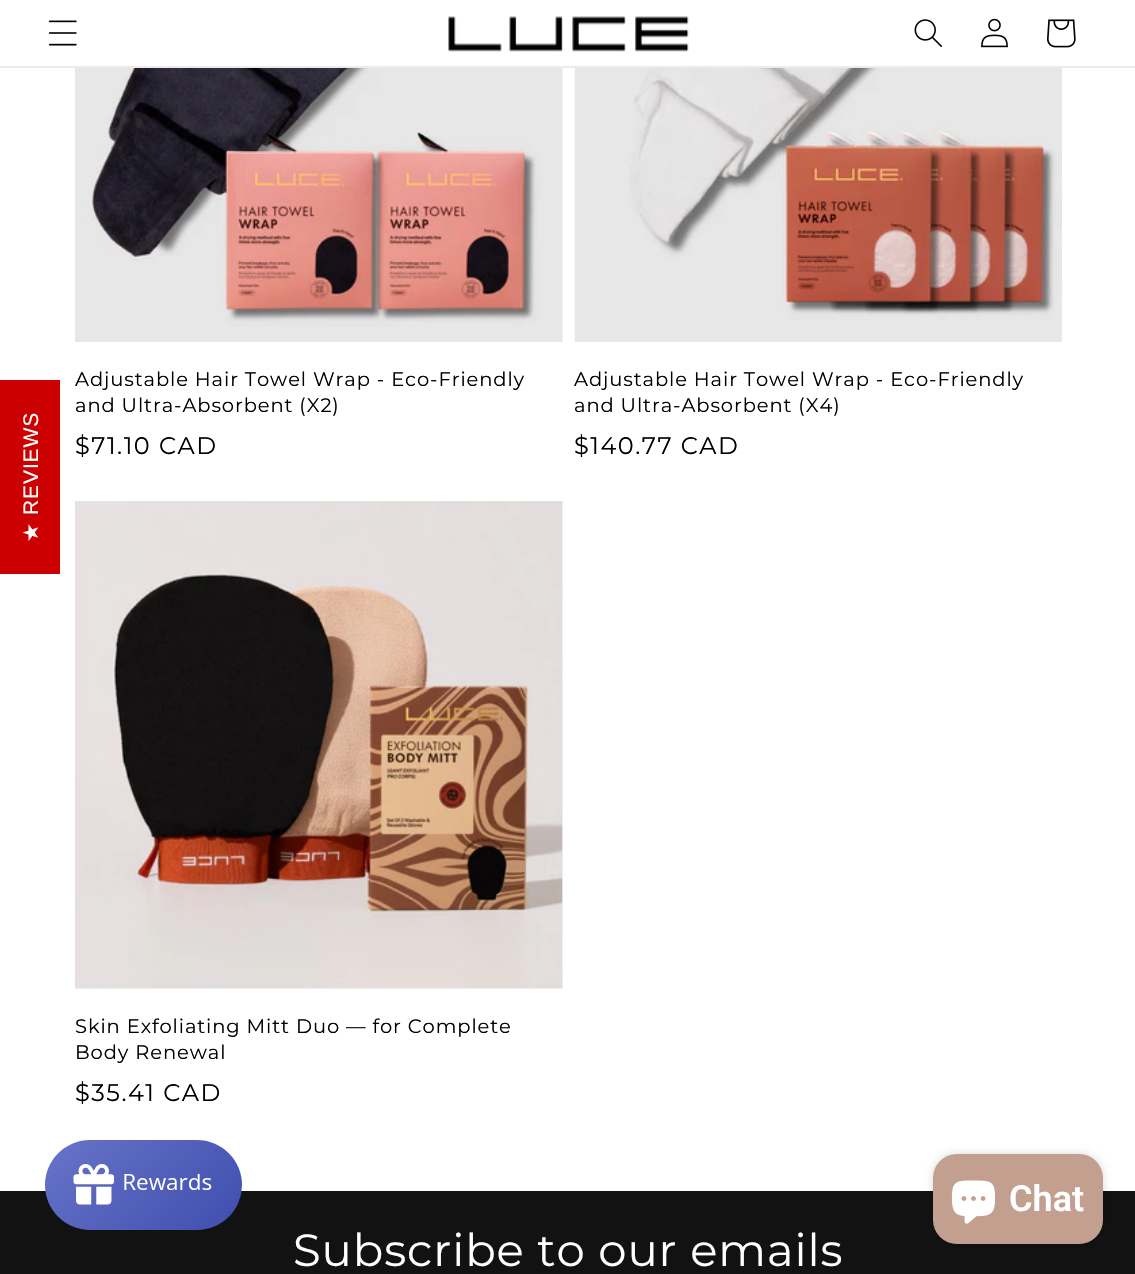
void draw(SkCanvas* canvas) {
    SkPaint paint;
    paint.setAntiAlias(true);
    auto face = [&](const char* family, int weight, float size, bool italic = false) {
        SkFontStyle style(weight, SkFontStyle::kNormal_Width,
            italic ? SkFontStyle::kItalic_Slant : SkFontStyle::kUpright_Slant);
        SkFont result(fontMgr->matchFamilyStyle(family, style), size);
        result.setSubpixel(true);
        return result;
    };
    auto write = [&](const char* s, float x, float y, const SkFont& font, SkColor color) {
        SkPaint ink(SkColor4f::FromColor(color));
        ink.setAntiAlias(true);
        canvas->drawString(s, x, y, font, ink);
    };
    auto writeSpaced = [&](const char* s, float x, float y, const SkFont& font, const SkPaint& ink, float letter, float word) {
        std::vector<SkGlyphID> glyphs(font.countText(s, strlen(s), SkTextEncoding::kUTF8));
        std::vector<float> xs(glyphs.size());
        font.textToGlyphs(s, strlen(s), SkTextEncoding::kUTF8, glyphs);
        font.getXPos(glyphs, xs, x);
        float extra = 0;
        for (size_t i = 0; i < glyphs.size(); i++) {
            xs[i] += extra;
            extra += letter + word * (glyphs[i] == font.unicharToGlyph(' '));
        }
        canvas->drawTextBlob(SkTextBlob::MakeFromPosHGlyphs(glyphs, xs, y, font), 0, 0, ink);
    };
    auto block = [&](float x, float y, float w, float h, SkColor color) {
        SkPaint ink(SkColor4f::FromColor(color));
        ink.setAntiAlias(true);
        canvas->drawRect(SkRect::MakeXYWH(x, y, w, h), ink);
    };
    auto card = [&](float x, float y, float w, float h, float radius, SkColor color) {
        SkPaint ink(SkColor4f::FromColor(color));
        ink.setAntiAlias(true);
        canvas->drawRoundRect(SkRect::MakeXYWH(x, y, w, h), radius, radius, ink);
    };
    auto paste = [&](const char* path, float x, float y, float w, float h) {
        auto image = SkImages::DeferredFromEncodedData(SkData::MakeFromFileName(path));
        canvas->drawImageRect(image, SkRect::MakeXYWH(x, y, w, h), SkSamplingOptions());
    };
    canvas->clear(SK_ColorWHITE);
    block(0, 66, 1135, 2, SkColorSetRGB(235, 235, 235));
    paste("pic1.png", 48, 20, 29, 26);
    paste("pic2.png", 448, 16, 241, 36);
    paste("pic3.png", 914, 19, 28, 28);
    paste("pic4.png", 981, 18, 27, 30);
    paste("pic5.png", 1047, 19, 29, 29);
    block(0, 380, 60, 194, SkColorSetRGB(204, 0, 0));
    auto kFont1 = face("Liberation Sans", 400, 21);
    paint.setColor(SK_ColorWHITE);
    canvas->save();
    canvas->rotate(-90, 38, 515);
    writeSpaced("REVIEWS", 38, 515, kFont1, paint, 0.9f, 0);
    canvas->restore();
    auto kFont2 = face("DejaVu Sans", 400, 21);
    canvas->save();
    canvas->rotate(-90, 38, 542);
    writeSpaced("★", 38, 542, kFont2, paint, 0.9f, 0);
    canvas->restore();
    block(562, 68, 1, 274, SkColorSetRGB(243, 243, 243));
    paste("pic6.png", 75, 68, 487, 274);
    auto kFont3 = face("Montserrat", 400, 19.5f);
    paint.setColor(SK_ColorBLACK);
    writeSpaced("Adjustable Hair Towel Wrap - Eco-Friendly", 75, 386, kFont3, paint, 0.9f, 0);
    writeSpaced("and Ultra-Absorbent (X2)", 75, 412, kFont3, paint, 0.9f, 0);
    auto kFont4 = face("Montserrat", 400, 24);
    writeSpaced("$71.10 CAD", 75, 454, kFont4, paint, 1.5f, 0);
    paste("pic7.png", 574, 68, 488, 274);
    writeSpaced("Adjustable Hair Towel Wrap - Eco-Friendly", 574, 386, kFont3, paint, 0.9f, 0);
    writeSpaced("and Ultra-Absorbent (X4)", 574, 412, kFont3, paint, 0.9f, 0);
    writeSpaced("$140.77 CAD", 574, 454, kFont4, paint, 1.5f, 0);
    block(75, 501, 488, 488, SkColorSetRGB(243, 243, 243));
    paste("pic8.png", 75, 501, 488, 488);
    writeSpaced("Skin Exfoliating Mitt Duo — for Complete", 75, 1033, kFont3, paint, 0.9f, 0);
    writeSpaced("Body Renewal", 75, 1059, kFont3, paint, 0.9f, 0);
    writeSpaced("$35.41 CAD", 75, 1101, kFont4, paint, 1.5f, 0);
    block(0, 1191, 1135, 83, SkColorSetRGB(18, 18, 18));
    {
        const SkColor colors[] = {SkColorSetRGB(103, 116, 200), SkColorSetRGB(63, 78, 174)};
        const float stops[] = {0, 1};
        const SkPoint ends[] = {{72, 1113}, {215, 1257}};
        paint.setShader(SkGradientShader::MakeLinear(ends, colors, stops, 2, SkTileMode::kClamp));
        paint.setAlpha(255);
    }
    canvas->drawRoundRect(SkRect::MakeXYWH(45, 1140, 197, 90), 45, 45, paint);
    paste("pic9.png", 73, 1164, 139, 41);
    paint.setShader(nullptr);
    paint.setColor(SkColorSetARGB(38, 0, 0, 0));
    paint.setMaskFilter(SkMaskFilter::MakeBlur(kNormal_SkBlurStyle, 4));
    canvas->drawRoundRect(SkRect::MakeXYWH(933, 1154, 170, 90), 24, 24, paint);
    paint.setMaskFilter(nullptr);
    card(933, 1154, 170, 90, 24, SkColorSetRGB(194, 159, 142));
    paste("pic10.png", 951, 1180, 45, 44);
    auto kFont5 = face("Roboto", 600, 36);
    write("Chat", 1009, 1211, kFont5, SK_ColorWHITE);
    auto kFont6 = face("Montserrat", 400, 45);
    paint.setColor(SK_ColorWHITE);
    writeSpaced("Subscribe to our emails", 293, 1266, kFont6, paint, 0.9f, 0);
}
